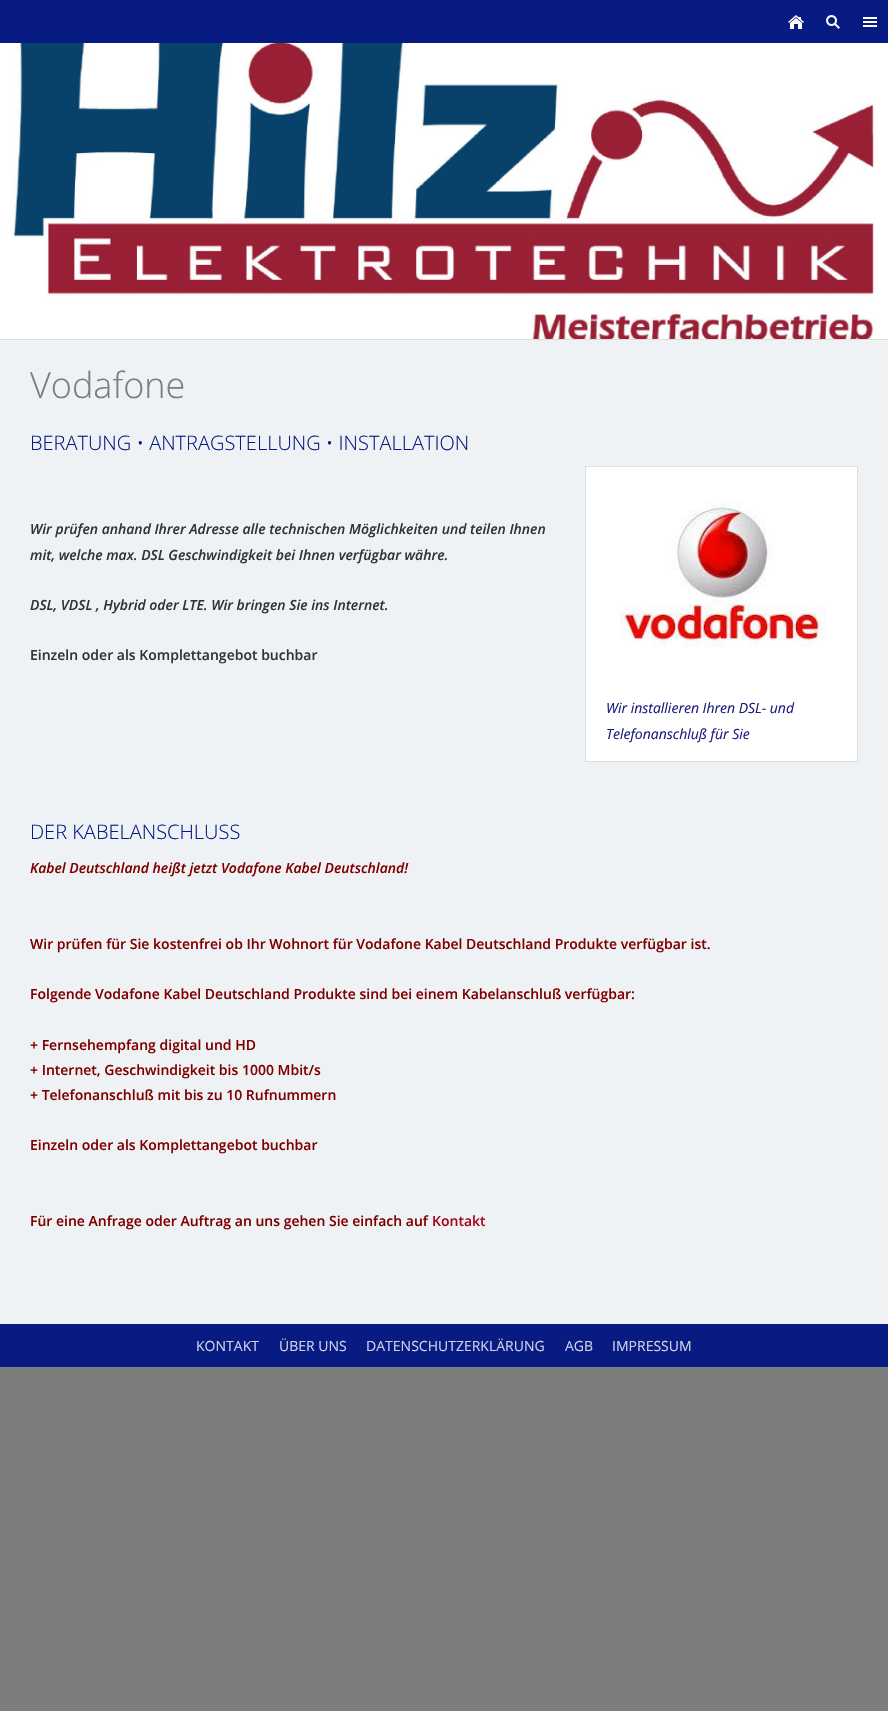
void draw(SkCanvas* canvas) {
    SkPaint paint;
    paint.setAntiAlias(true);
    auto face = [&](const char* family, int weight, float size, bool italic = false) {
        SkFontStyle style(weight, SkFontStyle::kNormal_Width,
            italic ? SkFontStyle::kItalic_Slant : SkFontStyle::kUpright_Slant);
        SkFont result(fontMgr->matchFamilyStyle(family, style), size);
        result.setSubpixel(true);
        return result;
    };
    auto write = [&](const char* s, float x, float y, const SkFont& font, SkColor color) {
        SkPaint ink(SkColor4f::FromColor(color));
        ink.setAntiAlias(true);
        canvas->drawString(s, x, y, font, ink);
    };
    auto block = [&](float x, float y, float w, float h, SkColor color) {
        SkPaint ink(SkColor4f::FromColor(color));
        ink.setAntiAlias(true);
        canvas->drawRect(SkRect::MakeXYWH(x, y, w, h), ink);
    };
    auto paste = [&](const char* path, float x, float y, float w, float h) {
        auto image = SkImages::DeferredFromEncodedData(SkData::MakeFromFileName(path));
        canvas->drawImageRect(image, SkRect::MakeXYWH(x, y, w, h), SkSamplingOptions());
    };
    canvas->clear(SkColorSetRGB(125, 125, 125));
    block(0, 0, 888, 43, SkColorSetRGB(8, 27, 130));
    paste("pic1.png", 788, 15, 16, 14);
    paste("pic2.png", 826, 15, 14, 14);
    paste("pic3.png", 863, 17, 14, 10);
    block(0, 340, 888, 984, SkColorSetRGB(239, 242, 244));
    block(0, 339, 888, 1, SkColorSetRGB(221, 221, 221));
    paste("pic4.png", 0, 43, 888, 296);
    auto kFont1 = face("Open Sans", 300, 36);
    write("Vodafone", 30, 398, kFont1, SkColorSetRGB(125, 125, 125));
    auto kFont2 = face("Open Sans", 300, 20);
    write("BERATUNG • ANTRAGSTELLUNG • INSTALLATION", 30, 450, kFont2, SkColorSetRGB(8, 27, 130));
    auto kFont3 = face("Open Sans", 600, 14, true);
    write("Wir prüfen anhand Ihrer Adresse alle technischen Möglichkeiten und teilen Ihnen", 30, 534, kFont3, SkColorSetRGB(51, 51, 51));
    write("mit, welche max. DSL Geschwindigkeit bei Ihnen verfügbar währe.", 30, 560, kFont3, SkColorSetRGB(51, 51, 51));
    write("DSL, VDSL , Hybrid oder LTE. Wir bringen Sie ins Internet.", 30, 610, kFont3, SkColorSetRGB(51, 51, 51));
    auto kFont4 = face("Open Sans", 600, 14);
    write("Einzeln oder als Komplettangebot buchbar", 30, 660, kFont4, SkColorSetRGB(51, 51, 51));
    paint.setColor(SK_ColorWHITE);
    canvas->drawRect(SkRect::MakeXYWH(585.5f, 466.5f, 272, 295), paint);
    paint.setStyle(SkPaint::kStroke_Style);
    paint.setStrokeWidth(1);
    paint.setColor(SkColorSetRGB(221, 221, 221));
    canvas->drawRect(SkRect::MakeXYWH(585.5f, 466.5f, 272, 295), paint);
    paste("pic5.png", 619, 501, 208, 146);
    auto kFont5 = face("Open Sans", 400, 14, true);
    write("Wir installieren Ihren DSL- und", 606, 713, kFont5, SkColorSetRGB(26, 26, 122));
    write("Telefonanschluß für Sie", 606, 739, kFont5, SkColorSetRGB(26, 26, 122));
    write("DER KABELANSCHLUSS", 30, 839, kFont2, SkColorSetRGB(8, 27, 130));
    write("Kabel Deutschland heißt jetzt Vodafone Kabel Deutschland!", 30, 873, kFont3, SkColorSetRGB(128, 0, 0));
    write("Wir prüfen für Sie kostenfrei ob Ihr Wohnort für Vodafone Kabel Deutschland Produkte verfügbar ist.", 30, 949, kFont4, SkColorSetRGB(128, 0, 0));
    write("Folgende Vodafone Kabel Deutschland Produkte sind bei einem Kabelanschluß verfügbar:", 30, 999, kFont4, SkColorSetRGB(128, 0, 0));
    write("+ Fernsehempfang digital und HD", 30, 1050, kFont4, SkColorSetRGB(128, 0, 0));
    write("+ Internet, Geschwindigkeit bis 1000 Mbit/s", 30, 1075, kFont4, SkColorSetRGB(128, 0, 0));
    write("+ Telefonanschluß mit bis zu 10 Rufnummern", 30, 1100, kFont4, SkColorSetRGB(128, 0, 0));
    write("Einzeln oder als Komplettangebot buchbar", 30, 1150, kFont4, SkColorSetRGB(128, 0, 0));
    write("Für eine Anfrage oder Auftrag an uns gehen Sie einfach auf", 30, 1226, kFont4, SkColorSetRGB(128, 0, 0));
    write("Kontakt", 432, 1226, kFont4, SkColorSetRGB(168, 7, 34));
    block(0, 1324, 888, 43, SkColorSetRGB(8, 27, 130));
    auto kFont6 = face("Open Sans", 400, 14);
    write("KONTAKT", 196, 1351, kFont6, SkColorSetRGB(206, 209, 230));
    write("ÜBER UNS", 279, 1351, kFont6, SkColorSetRGB(206, 209, 230));
    write("DATENSCHUTZERKLÄRUNG", 366, 1351, kFont6, SkColorSetRGB(206, 209, 230));
    write("AGB", 565, 1351, kFont6, SkColorSetRGB(206, 209, 230));
    write("IMPRESSUM", 612, 1351, kFont6, SkColorSetRGB(206, 209, 230));
}
